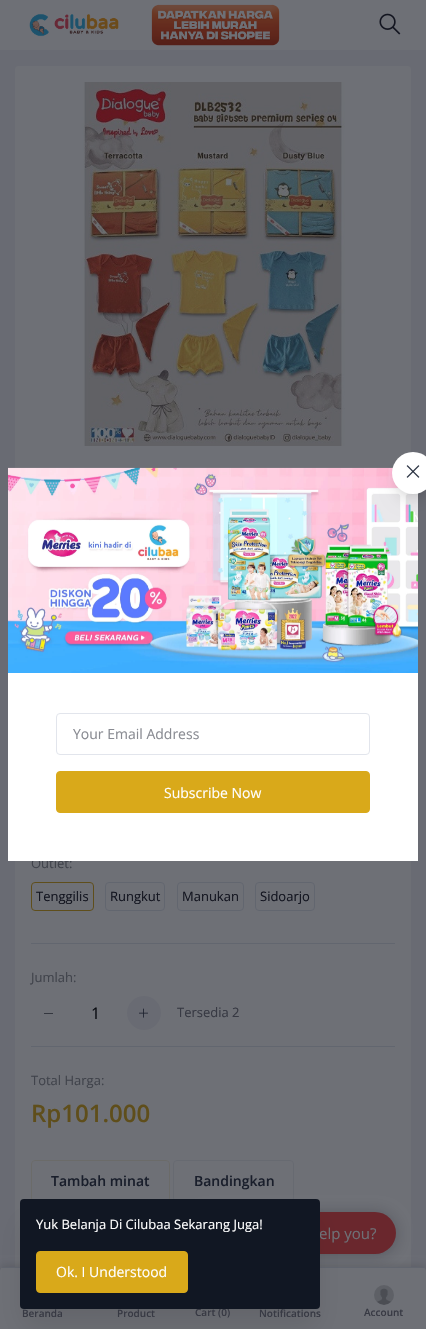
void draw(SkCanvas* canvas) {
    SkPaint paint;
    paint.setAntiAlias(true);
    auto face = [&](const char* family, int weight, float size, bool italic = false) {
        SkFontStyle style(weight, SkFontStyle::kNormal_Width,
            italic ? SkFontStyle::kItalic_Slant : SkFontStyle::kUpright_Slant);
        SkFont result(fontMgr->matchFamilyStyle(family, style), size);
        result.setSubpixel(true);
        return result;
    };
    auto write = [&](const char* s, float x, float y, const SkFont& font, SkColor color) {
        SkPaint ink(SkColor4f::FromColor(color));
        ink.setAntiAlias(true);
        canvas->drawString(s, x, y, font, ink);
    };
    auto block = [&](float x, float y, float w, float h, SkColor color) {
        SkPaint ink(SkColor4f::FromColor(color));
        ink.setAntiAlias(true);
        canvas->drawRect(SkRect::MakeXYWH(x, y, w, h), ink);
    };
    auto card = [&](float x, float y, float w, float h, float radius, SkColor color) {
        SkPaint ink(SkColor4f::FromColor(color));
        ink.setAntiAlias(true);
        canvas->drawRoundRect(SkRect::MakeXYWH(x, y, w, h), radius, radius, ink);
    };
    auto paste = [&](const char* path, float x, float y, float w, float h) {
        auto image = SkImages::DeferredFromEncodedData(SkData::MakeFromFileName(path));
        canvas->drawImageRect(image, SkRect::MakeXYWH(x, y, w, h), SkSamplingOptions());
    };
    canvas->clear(SkColorSetRGB(105, 107, 115));
    card(15, 66, 396, 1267, 4, SkColorSetRGB(110, 112, 118));
    auto kFont1 = face("Open Sans", 400, 13);
    write("Outlet:", 31, 868, kFont1, SkColorSetRGB(64, 67, 75));
    block(8, 673, 410, 188, SK_ColorWHITE);
    paste("pic2.png", 8, 467, 410, 206);
    paint.setColor(SkColorSetARGB(13, 0, 0, 0));
    paint.setMaskFilter(SkMaskFilter::MakeBlur(kNormal_SkBlurStyle, 3));
    canvas->drawRoundRect(SkRect::MakeXYWH(394, 458, 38, 38), 19, 19, paint);
    paint.setMaskFilter(nullptr);
    paint.setColor(SkColorSetARGB(26, 0, 0, 0));
    paint.setMaskFilter(SkMaskFilter::MakeBlur(kNormal_SkBlurStyle, 7.5f));
    canvas->drawRoundRect(SkRect::MakeXYWH(395, 465, 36, 36), 18, 18, paint);
    paint.setMaskFilter(nullptr);
    paint.setColor(SK_ColorWHITE);
    canvas->drawCircle(413, 473, 21, paint);
    paste("pic1.png", 406, 465, 14, 13);
    paint.setStyle(SkPaint::kStroke_Style);
    paint.setStrokeWidth(1);
    paint.setColor(SkColorSetRGB(226, 229, 236));
    canvas->drawRoundRect(SkRect::MakeXYWH(56.5f, 713.5f, 313, 41), 3.5f, 3.5f, paint);
    auto kFont2 = face("Open Sans", 400, 14);
    write("Your Email Address", 73, 739, kFont2, SkColorSetRGB(137, 139, 146));
    paint.setStyle(SkPaint::kFill_Style);
    paint.setColor(SkColorSetRGB(217, 169, 26));
    canvas->drawRoundRect(SkRect::MakeXYWH(56.5f, 771.5f, 313, 41), 3.5f, 3.5f, paint);
    paint.setStyle(SkPaint::kStroke_Style);
    canvas->drawRoundRect(SkRect::MakeXYWH(56.5f, 771.5f, 313, 41), 3.5f, 3.5f, paint);
    write("Subscribe Now", 164, 798, kFont2, SK_ColorWHITE);
    block(0, 0, 426, 50, SkColorSetRGB(110, 112, 118));
    paste("pic3.png", 29, 14, 90, 23);
    paste("pic4.png", 151, 4, 129, 42);
    paste("pic5.png", 379, 13, 22, 22);
    paste("pic6.png", 81, 82, 264, 364);
    paint.setColor(SkColorSetRGB(95, 78, 27));
    canvas->drawRoundRect(SkRect::MakeXYWH(31.5f, 882.5f, 62, 28), 3.5f, 3.5f, paint);
    write("Tenggilis", 36, 901, kFont1, SkColorSetRGB(19, 21, 32));
    paint.setColor(SkColorSetRGB(98, 102, 111));
    canvas->drawRoundRect(SkRect::MakeXYWH(105.5f, 882.5f, 59, 28), 3.5f, 3.5f, paint);
    write("Rungkut", 110, 901, kFont1, SkColorSetRGB(19, 21, 32));
    canvas->drawRoundRect(SkRect::MakeXYWH(177.5f, 882.5f, 66, 28), 3.5f, 3.5f, paint);
    write("Manukan", 182, 901, kFont1, SkColorSetRGB(19, 21, 32));
    canvas->drawRoundRect(SkRect::MakeXYWH(255.5f, 882.5f, 59, 28), 3.5f, 3.5f, paint);
    write("Sidoarjo", 260, 901, kFont1, SkColorSetRGB(19, 21, 32));
    block(31, 943, 364, 1, SkColorSetRGB(98, 102, 111));
    write("Jumlah:", 31, 982, kFont1, SkColorSetRGB(64, 67, 75));
    block(44, 1013, 9, 1, SkColorSetRGB(52, 55, 63));
    auto kFont3 = face("Open Sans", 400, 16);
    write("1", 91, 1019, kFont3, SkColorSetRGB(8, 10, 16));
    paint.setStyle(SkPaint::kFill_Style);
    paint.setColor(SkColorSetRGB(105, 107, 115));
    canvas->drawCircle(144, 1013, 17, paint);
    paste("pic7.png", 139, 1008, 9, 10);
    write("Tersedia 2", 177, 1017, kFont1, SkColorSetRGB(55, 57, 67));
    block(31, 1046, 364, 1, SkColorSetRGB(98, 102, 111));
    write("Total Harga:", 31, 1085, kFont1, SkColorSetRGB(64, 67, 75));
    auto kFont4 = face("Open Sans", 600, 24);
    write("Rp101.000", 31, 1122, kFont4, SkColorSetRGB(95, 78, 27));
    paint.setStyle(SkPaint::kStroke_Style);
    paint.setColor(SkColorSetRGB(107, 107, 105));
    canvas->drawRoundRect(SkRect::MakeXYWH(31.5f, 1160.5f, 138, 41), 3.5f, 3.5f, paint);
    auto kFont5 = face("Open Sans", 600, 14);
    write("Tambah minat", 51, 1186, kFont5, SkColorSetRGB(25, 30, 43));
    paint.setColor(SkColorSetRGB(103, 106, 113));
    canvas->drawRoundRect(SkRect::MakeXYWH(173.5f, 1160.5f, 120, 41), 3.5f, 3.5f, paint);
    write("Bandingkan", 194, 1186, kFont5, SkColorSetRGB(25, 30, 43));
    paint.setStyle(SkPaint::kFill_Style);
    paint.setColor(SkColorSetARGB(71, 21, 23, 31));
    paint.setMaskFilter(SkMaskFilter::MakeBlur(kNormal_SkBlurStyle, 7.5f));
    canvas->drawRoundRect(SkRect::MakeXYWH(192, 1213, 204, 42), 21, 21, paint);
    paint.setMaskFilter(nullptr);
    card(192, 1212, 204, 42, 21, SkColorSetRGB(106, 39, 45));
    paint.setColor(SkColorSetARGB(38, 8, 10, 16));
    paint.setMaskFilter(SkMaskFilter::MakeBlur(kNormal_SkBlurStyle, 5));
    canvas->drawRoundRect(SkRect::MakeXYWH(0, 1266, 426, 62), 4, 4, paint);
    paint.setMaskFilter(nullptr);
    paint.setColor(SkColorSetRGB(110, 112, 118));
    canvas->drawPath(SkPathBuilder().moveTo(4, 1267).lineTo(422, 1267).cubicTo(424, 1267, 426, 1269, 426, 1271).lineTo(426, 1329).lineTo(0, 1329).lineTo(0, 1271).cubicTo(0, 1269, 2, 1267, 4, 1267).close().detach(), paint);
    block(2, 1267, 422, 1, SkColorSetRGB(98, 102, 111));
    paint.setColor(SkColorSetARGB(26, 0, 0, 0));
    paint.setMaskFilter(SkMaskFilter::MakeBlur(kNormal_SkBlurStyle, 12.5f));
    canvas->drawRect(SkRect::MakeXYWH(25, 1224, 290, 100), paint);
    paint.setMaskFilter(nullptr);
    auto kFont6 = face("Open Sans", 400, 15);
    write("elp you?", 319, 1239, kFont6, SkColorSetRGB(110, 112, 118));
    auto kFont7 = face("Open Sans", 600, 10);
    write("Cart (0)", 195, 1316, kFont7, SkColorSetRGB(55, 57, 67));
    card(20, 1199, 300, 110, 4, SkColorSetRGB(17, 23, 35));
    write("Yuk Belanja Di Cilubaa Sekarang Juga!", 36, 1229, kFont1, SK_ColorWHITE);
    paint.setColor(SkColorSetRGB(217, 169, 26));
    canvas->drawRoundRect(SkRect::MakeXYWH(36.5f, 1251.5f, 151, 41), 3.5f, 3.5f, paint);
    paint.setStyle(SkPaint::kStroke_Style);
    canvas->drawRoundRect(SkRect::MakeXYWH(36.5f, 1251.5f, 151, 41), 3.5f, 3.5f, paint);
    write("Ok. I Understood", 56, 1277, kFont2, SK_ColorWHITE);
    write("Beranda", 22, 1317, kFont7, SkColorSetRGB(55, 57, 67));
    write("Product", 117, 1317, kFont7, SkColorSetRGB(55, 57, 67));
    write("Notifications", 259, 1317, kFont7, SkColorSetRGB(55, 57, 67));
    paste("pic8.png", 374, 1285, 20, 20);
    write("Account", 364, 1316, kFont7, SkColorSetRGB(55, 57, 67));
}
